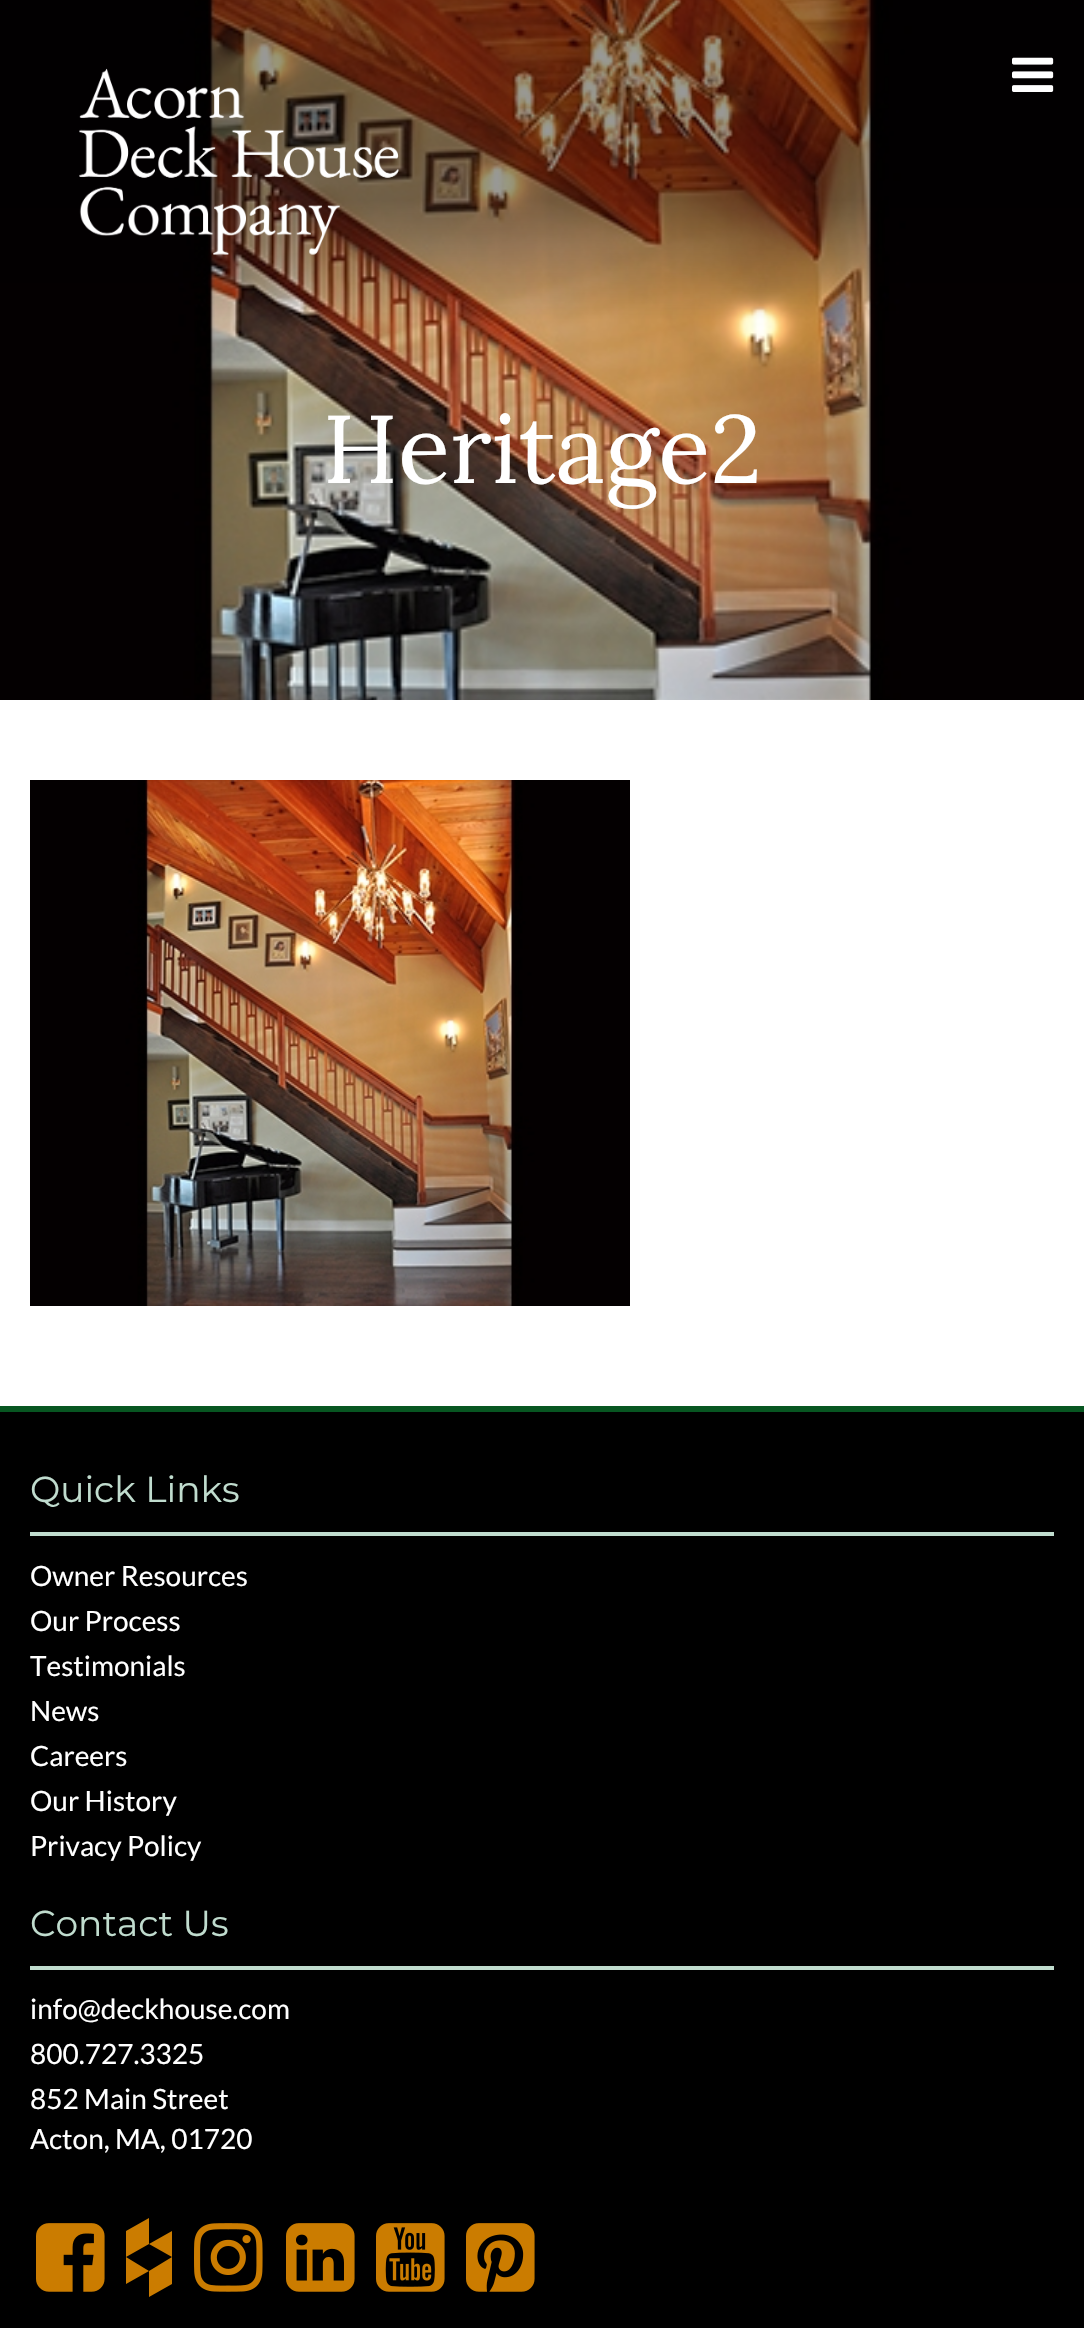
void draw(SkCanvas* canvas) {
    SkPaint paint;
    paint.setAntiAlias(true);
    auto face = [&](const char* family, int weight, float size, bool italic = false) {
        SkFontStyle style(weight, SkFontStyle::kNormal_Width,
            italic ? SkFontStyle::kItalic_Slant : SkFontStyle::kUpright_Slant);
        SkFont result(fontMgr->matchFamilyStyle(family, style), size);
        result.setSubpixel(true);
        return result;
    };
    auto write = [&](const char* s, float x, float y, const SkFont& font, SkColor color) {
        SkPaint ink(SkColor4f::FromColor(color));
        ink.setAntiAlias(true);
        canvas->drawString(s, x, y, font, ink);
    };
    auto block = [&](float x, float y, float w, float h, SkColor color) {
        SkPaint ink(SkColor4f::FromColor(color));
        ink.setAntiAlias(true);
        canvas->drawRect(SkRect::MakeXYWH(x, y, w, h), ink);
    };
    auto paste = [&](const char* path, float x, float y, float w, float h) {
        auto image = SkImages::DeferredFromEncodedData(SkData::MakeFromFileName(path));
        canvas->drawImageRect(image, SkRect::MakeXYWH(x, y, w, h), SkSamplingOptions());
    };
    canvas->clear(SK_ColorWHITE);
    paste("pic3.png", 0, 0, 1084, 700);
    paste("pic1.png", 79, 68, 320, 187);
    paste("pic2.png", 1012, 57, 42, 35);
    auto kFont1 = face("Lora", 400, 96);
    write("Heritage2", 323, 483, kFont1, SK_ColorWHITE);
    paste("pic4.png", 30, 780, 600, 526);
    block(0, 1412, 1084, 916, SK_ColorBLACK);
    block(0, 1406, 1084, 6, SkColorSetRGB(7, 86, 33));
    auto kFont2 = face("Montserrat", 400, 36);
    write("Quick Links", 30, 1502, kFont2, SkColorSetRGB(192, 220, 206));
    block(30, 1532, 1024, 4, SkColorSetRGB(192, 220, 206));
    auto kFont3 = face("Lato", 400, 28);
    write("Owner Resources", 30, 1586, kFont3, SK_ColorWHITE);
    write("Our Process", 30, 1631, kFont3, SK_ColorWHITE);
    write("Testimonials", 30, 1676, kFont3, SK_ColorWHITE);
    write("News", 30, 1721, kFont3, SK_ColorWHITE);
    write("Careers", 30, 1766, kFont3, SK_ColorWHITE);
    write("Our History", 30, 1811, kFont3, SK_ColorWHITE);
    write("Privacy Policy", 30, 1856, kFont3, SK_ColorWHITE);
    write("Contact Us", 30, 1936, kFont2, SkColorSetRGB(192, 220, 206));
    block(30, 1966, 1024, 4, SkColorSetRGB(192, 220, 206));
    write("info@deckhouse.com", 30, 2019, kFont3, SK_ColorWHITE);
    write("800.727.3325", 30, 2064, kFont3, SK_ColorWHITE);
    write("852 Main Street", 30, 2109, kFont3, SK_ColorWHITE);
    write("Acton, MA, 01720", 30, 2149, kFont3, SK_ColorWHITE);
    paste("pic5.png", 36, 2223, 69, 69);
    paint.setColor(SkColorSetRGB(203, 124, 0));
    canvas->drawPath(SkPathBuilder().moveTo(149, 2271).lineTo(172, 2257).lineTo(172, 2284).lineTo(149, 2297).close().moveTo(126, 2257).lineTo(126, 2284).lineTo(149, 2271).close().moveTo(149, 2218).lineTo(149, 2244).lineTo(126, 2257).lineTo(126, 2231).close().moveTo(149, 2244).lineTo(172, 2231).lineTo(172, 2257).close().detach(), paint);
    paste("pic6.png", 194, 2223, 69, 69);
    paste("pic7.png", 286, 2223, 69, 69);
    paste("pic8.png", 376, 2223, 69, 69);
    paste("pic9.png", 466, 2223, 69, 69);
}
